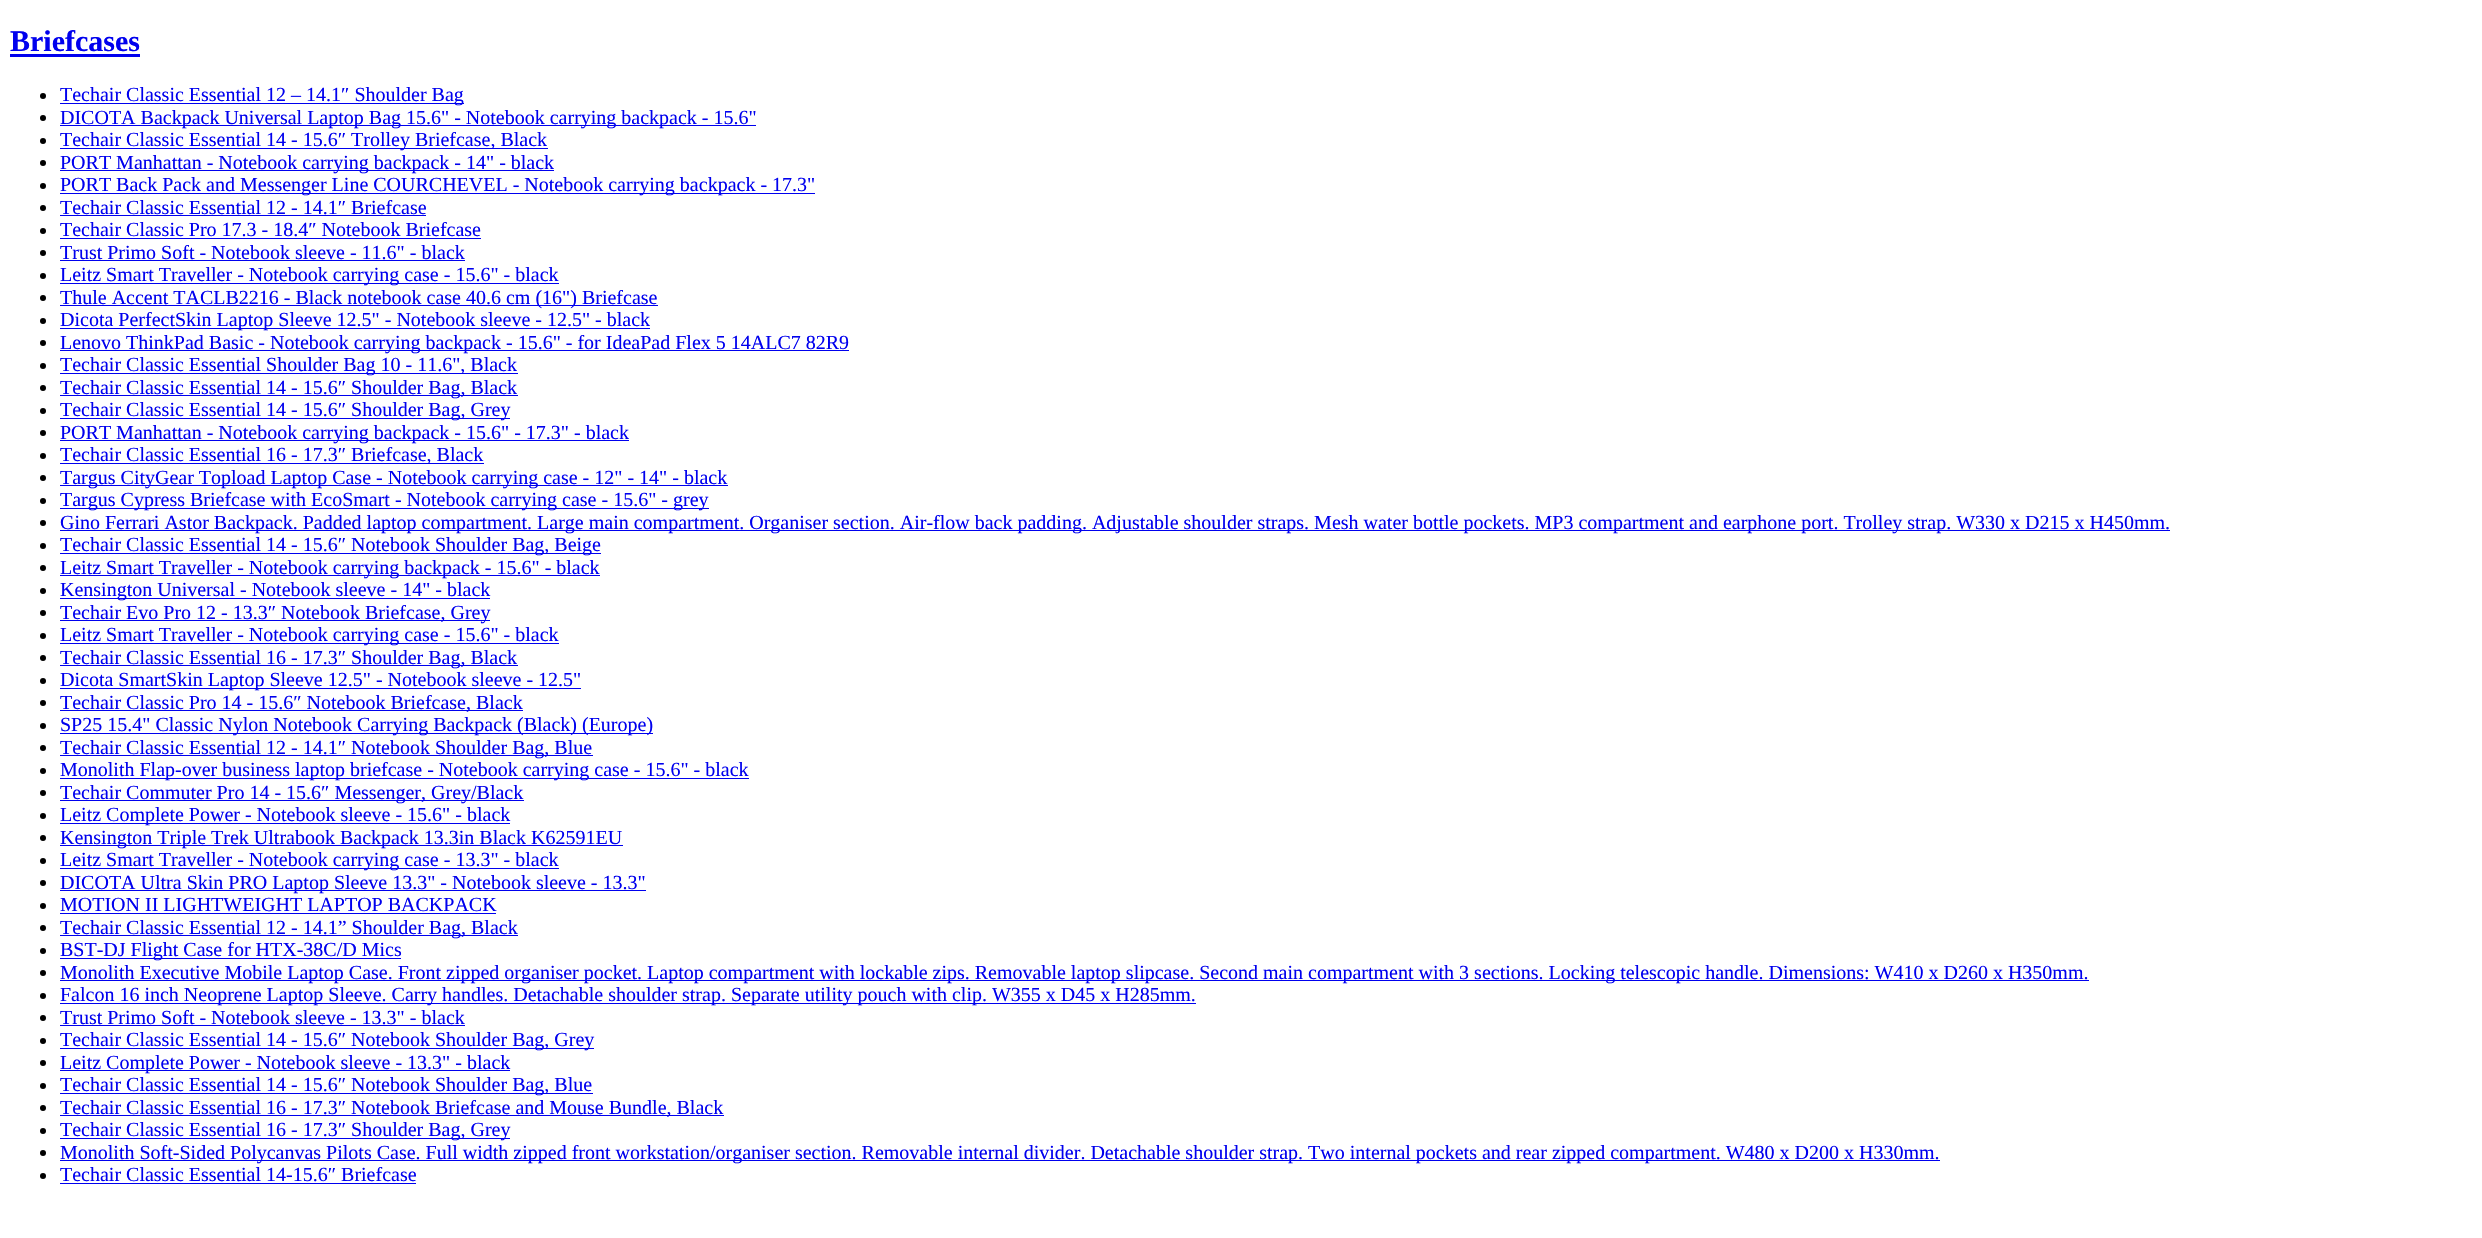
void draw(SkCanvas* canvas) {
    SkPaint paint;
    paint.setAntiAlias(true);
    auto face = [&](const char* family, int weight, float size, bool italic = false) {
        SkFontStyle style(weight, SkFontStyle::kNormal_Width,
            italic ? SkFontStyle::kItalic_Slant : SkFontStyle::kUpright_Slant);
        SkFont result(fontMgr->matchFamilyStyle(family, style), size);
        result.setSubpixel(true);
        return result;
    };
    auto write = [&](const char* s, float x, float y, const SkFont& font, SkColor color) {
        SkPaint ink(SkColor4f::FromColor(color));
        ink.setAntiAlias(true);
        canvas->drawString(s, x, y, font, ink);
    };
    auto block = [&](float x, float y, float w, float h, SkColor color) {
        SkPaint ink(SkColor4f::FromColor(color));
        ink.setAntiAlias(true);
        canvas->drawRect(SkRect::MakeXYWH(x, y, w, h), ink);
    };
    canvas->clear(SK_ColorWHITE);
    auto kFont1 = face("Liberation Serif", 700, 30);
    write("Briefcases", 10, 51, kFont1, SkColorSetRGB(0, 0, 238));
    block(10, 54, 130, 3, SkColorSetRGB(0, 0, 238));
    paint.setColor(SK_ColorBLACK);
    canvas->drawCircle(43, 96, 3, paint);
    block(60, 103, 404, 1, SkColorSetRGB(0, 0, 238));
    auto kFont2 = face("Liberation Serif", 400, 20);
    write("Techair Classic Essential 12 – 14.1″ Shoulder Bag", 60, 101, kFont2, SkColorSetRGB(0, 0, 238));
    canvas->drawCircle(43, 118, 3, paint);
    block(60, 125, 696, 1, SkColorSetRGB(0, 0, 238));
    write("DICOTA Backpack Universal Laptop Bag 15.6\" - Notebook carrying backpack - 15.6\"", 60, 124, kFont2, SkColorSetRGB(0, 0, 238));
    canvas->drawCircle(43, 141, 3, paint);
    block(60, 148, 488, 1, SkColorSetRGB(0, 0, 238));
    write("Techair Classic Essential 14 - 15.6″ Trolley Briefcase, Black", 60, 146, kFont2, SkColorSetRGB(0, 0, 238));
    canvas->drawCircle(43, 163, 3, paint);
    block(60, 170, 494, 1, SkColorSetRGB(0, 0, 238));
    write("PORT Manhattan - Notebook carrying backpack - 14\" - black", 60, 169, kFont2, SkColorSetRGB(0, 0, 238));
    canvas->drawCircle(43, 186, 3, paint);
    block(60, 193, 755, 1, SkColorSetRGB(0, 0, 238));
    write("PORT Back Pack and Messenger Line COURCHEVEL - Notebook carrying backpack - 17.3\"", 60, 191, kFont2, SkColorSetRGB(0, 0, 238));
    canvas->drawCircle(43, 208, 3, paint);
    write("Techair Classic Essential 12 - 14.1″ Briefcase", 60, 214, kFont2, SkColorSetRGB(0, 0, 238));
    block(60, 215, 366, 1, SkColorSetRGB(0, 0, 238));
    canvas->drawCircle(43, 231, 3, paint);
    write("Techair Classic Pro 17.3 - 18.4″ Notebook Briefcase", 60, 236, kFont2, SkColorSetRGB(0, 0, 238));
    block(60, 238, 421, 1, SkColorSetRGB(0, 0, 238));
    canvas->drawCircle(43, 253, 3, paint);
    write("Trust Primo Soft - Notebook sleeve - 11.6\" - black", 60, 259, kFont2, SkColorSetRGB(0, 0, 238));
    block(60, 260, 405, 1, SkColorSetRGB(0, 0, 238));
    canvas->drawCircle(43, 276, 3, paint);
    block(60, 283, 499, 1, SkColorSetRGB(0, 0, 238));
    write("Leitz Smart Traveller - Notebook carrying case - 15.6\" - black", 60, 281, kFont2, SkColorSetRGB(0, 0, 238));
    canvas->drawCircle(43, 298, 3, paint);
    block(60, 305, 598, 1, SkColorSetRGB(0, 0, 238));
    write("Thule Accent TACLB2216 - Black notebook case 40.6 cm (16\") Briefcase", 60, 304, kFont2, SkColorSetRGB(0, 0, 238));
    canvas->drawCircle(43, 321, 3, paint);
    block(60, 328, 590, 1, SkColorSetRGB(0, 0, 238));
    write("Dicota PerfectSkin Laptop Sleeve 12.5\" - Notebook sleeve - 12.5\" - black", 60, 326, kFont2, SkColorSetRGB(0, 0, 238));
    canvas->drawCircle(43, 343, 3, paint);
    block(60, 350, 789, 1, SkColorSetRGB(0, 0, 238));
    write("Lenovo ThinkPad Basic - Notebook carrying backpack - 15.6\" - for IdeaPad Flex 5 14ALC7 82R9", 60, 349, kFont2, SkColorSetRGB(0, 0, 238));
    canvas->drawCircle(43, 366, 3, paint);
    block(60, 373, 458, 1, SkColorSetRGB(0, 0, 238));
    write("Techair Classic Essential Shoulder Bag 10 - 11.6\", Black", 60, 371, kFont2, SkColorSetRGB(0, 0, 238));
    canvas->drawCircle(43, 388, 3, paint);
    block(60, 395, 458, 1, SkColorSetRGB(0, 0, 238));
    write("Techair Classic Essential 14 - 15.6″ Shoulder Bag, Black", 60, 394, kFont2, SkColorSetRGB(0, 0, 238));
    canvas->drawCircle(43, 411, 3, paint);
    block(60, 418, 450, 1, SkColorSetRGB(0, 0, 238));
    write("Techair Classic Essential 14 - 15.6″ Shoulder Bag, Grey", 60, 416, kFont2, SkColorSetRGB(0, 0, 238));
    canvas->drawCircle(43, 433, 3, paint);
    block(60, 440, 569, 1, SkColorSetRGB(0, 0, 238));
    write("PORT Manhattan - Notebook carrying backpack - 15.6\" - 17.3\" - black", 60, 439, kFont2, SkColorSetRGB(0, 0, 238));
    canvas->drawCircle(43, 456, 3, paint);
    block(60, 463, 424, 1, SkColorSetRGB(0, 0, 238));
    write("Techair Classic Essential 16 - 17.3″ Briefcase, Black", 60, 461, kFont2, SkColorSetRGB(0, 0, 238));
    canvas->drawCircle(43, 478, 3, paint);
    block(60, 485, 668, 1, SkColorSetRGB(0, 0, 238));
    write("Targus CityGear Topload Laptop Case - Notebook carrying case - 12\" - 14\" - black", 60, 484, kFont2, SkColorSetRGB(0, 0, 238));
    canvas->drawCircle(43, 501, 3, paint);
    block(60, 508, 649, 1, SkColorSetRGB(0, 0, 238));
    write("Targus Cypress Briefcase with EcoSmart - Notebook carrying case - 15.6\" - grey", 60, 506, kFont2, SkColorSetRGB(0, 0, 238));
    canvas->drawCircle(43, 523, 3, paint);
    block(60, 530, 2110, 1, SkColorSetRGB(0, 0, 238));
    write("Gino Ferrari Astor Backpack. Padded laptop compartment. Large main compartment. Organiser section. Air-flow back padding. Adjustable shoulder straps. Mesh water bottle pockets. MP3 compartment and earphone port. Trolley strap. W330 x D215 x H450mm.", 60, 529, kFont2, SkColorSetRGB(0, 0, 238));
    canvas->drawCircle(43, 546, 3, paint);
    block(60, 553, 541, 1, SkColorSetRGB(0, 0, 238));
    write("Techair Classic Essential 14 - 15.6″ Notebook Shoulder Bag, Beige", 60, 551, kFont2, SkColorSetRGB(0, 0, 238));
    canvas->drawCircle(43, 568, 3, paint);
    block(60, 575, 540, 1, SkColorSetRGB(0, 0, 238));
    write("Leitz Smart Traveller - Notebook carrying backpack - 15.6\" - black", 60, 574, kFont2, SkColorSetRGB(0, 0, 238));
    canvas->drawCircle(43, 591, 3, paint);
    block(60, 598, 430, 1, SkColorSetRGB(0, 0, 238));
    write("Kensington Universal - Notebook sleeve - 14\" - black", 60, 596, kFont2, SkColorSetRGB(0, 0, 238));
    canvas->drawCircle(43, 613, 3, paint);
    block(60, 620, 430, 1, SkColorSetRGB(0, 0, 238));
    write("Techair Evo Pro 12 - 13.3″ Notebook Briefcase, Grey", 60, 619, kFont2, SkColorSetRGB(0, 0, 238));
    canvas->drawCircle(43, 636, 3, paint);
    block(60, 643, 499, 1, SkColorSetRGB(0, 0, 238));
    write("Leitz Smart Traveller - Notebook carrying case - 15.6\" - black", 60, 641, kFont2, SkColorSetRGB(0, 0, 238));
    canvas->drawCircle(43, 658, 3, paint);
    block(60, 665, 458, 1, SkColorSetRGB(0, 0, 238));
    write("Techair Classic Essential 16 - 17.3″ Shoulder Bag, Black", 60, 664, kFont2, SkColorSetRGB(0, 0, 238));
    canvas->drawCircle(43, 681, 3, paint);
    block(60, 688, 521, 1, SkColorSetRGB(0, 0, 238));
    write("Dicota SmartSkin Laptop Sleeve 12.5\" - Notebook sleeve - 12.5\"", 60, 686, kFont2, SkColorSetRGB(0, 0, 238));
    canvas->drawCircle(43, 703, 3, paint);
    block(60, 710, 463, 1, SkColorSetRGB(0, 0, 238));
    write("Techair Classic Pro 14 - 15.6″ Notebook Briefcase, Black", 60, 709, kFont2, SkColorSetRGB(0, 0, 238));
    canvas->drawCircle(43, 726, 3, paint);
    block(60, 733, 593, 1, SkColorSetRGB(0, 0, 238));
    write("SP25 15.4\" Classic Nylon Notebook Carrying Backpack (Black) (Europe)", 60, 731, kFont2, SkColorSetRGB(0, 0, 238));
    canvas->drawCircle(43, 748, 3, paint);
    block(60, 755, 533, 1, SkColorSetRGB(0, 0, 238));
    write("Techair Classic Essential 12 - 14.1″ Notebook Shoulder Bag, Blue", 60, 754, kFont2, SkColorSetRGB(0, 0, 238));
    canvas->drawCircle(43, 771, 3, paint);
    block(60, 778, 689, 1, SkColorSetRGB(0, 0, 238));
    write("Monolith Flap-over business laptop briefcase - Notebook carrying case - 15.6\" - black", 60, 776, kFont2, SkColorSetRGB(0, 0, 238));
    canvas->drawCircle(43, 793, 3, paint);
    block(60, 800, 464, 1, SkColorSetRGB(0, 0, 238));
    write("Techair Commuter Pro 14 - 15.6″ Messenger, Grey/Black", 60, 799, kFont2, SkColorSetRGB(0, 0, 238));
    canvas->drawCircle(43, 816, 3, paint);
    block(60, 823, 450, 1, SkColorSetRGB(0, 0, 238));
    write("Leitz Complete Power - Notebook sleeve - 15.6\" - black", 60, 821, kFont2, SkColorSetRGB(0, 0, 238));
    canvas->drawCircle(43, 838, 3, paint);
    block(60, 845, 563, 1, SkColorSetRGB(0, 0, 238));
    write("Kensington Triple Trek Ultrabook Backpack 13.3in Black K62591EU", 60, 844, kFont2, SkColorSetRGB(0, 0, 238));
    canvas->drawCircle(43, 861, 3, paint);
    block(60, 868, 499, 1, SkColorSetRGB(0, 0, 238));
    write("Leitz Smart Traveller - Notebook carrying case - 13.3\" - black", 60, 866, kFont2, SkColorSetRGB(0, 0, 238));
    canvas->drawCircle(43, 883, 3, paint);
    block(60, 890, 586, 1, SkColorSetRGB(0, 0, 238));
    write("DICOTA Ultra Skin PRO Laptop Sleeve 13.3\" - Notebook sleeve - 13.3\"", 60, 889, kFont2, SkColorSetRGB(0, 0, 238));
    canvas->drawCircle(43, 906, 3, paint);
    write("MOTION II LIGHTWEIGHT LAPTOP BACKPACK", 60, 911, kFont2, SkColorSetRGB(0, 0, 238));
    block(60, 913, 436, 1, SkColorSetRGB(0, 0, 238));
    canvas->drawCircle(43, 928, 3, paint);
    block(60, 935, 458, 1, SkColorSetRGB(0, 0, 238));
    write("Techair Classic Essential 12 - 14.1” Shoulder Bag, Black", 60, 934, kFont2, SkColorSetRGB(0, 0, 238));
    canvas->drawCircle(43, 951, 3, paint);
    block(60, 958, 341, 1, SkColorSetRGB(0, 0, 238));
    write("BST-DJ Flight Case for HTX-38C/D Mics", 60, 956, kFont2, SkColorSetRGB(0, 0, 238));
    canvas->drawCircle(43, 973, 3, paint);
    block(60, 980, 2029, 1, SkColorSetRGB(0, 0, 238));
    write("Monolith Executive Mobile Laptop Case. Front zipped organiser pocket. Laptop compartment with lockable zips. Removable laptop slipcase. Second main compartment with 3 sections. Locking telescopic handle. Dimensions: W410 x D260 x H350mm.", 60, 979, kFont2, SkColorSetRGB(0, 0, 238));
    canvas->drawCircle(43, 996, 3, paint);
    block(60, 1003, 1136, 1, SkColorSetRGB(0, 0, 238));
    write("Falcon 16 inch Neoprene Laptop Sleeve. Carry handles. Detachable shoulder strap. Separate utility pouch with clip. W355 x D45 x H285mm.", 60, 1001, kFont2, SkColorSetRGB(0, 0, 238));
    canvas->drawCircle(43, 1018, 3, paint);
    write("Trust Primo Soft - Notebook sleeve - 13.3\" - black", 60, 1024, kFont2, SkColorSetRGB(0, 0, 238));
    block(60, 1025, 405, 1, SkColorSetRGB(0, 0, 238));
    canvas->drawCircle(43, 1041, 3, paint);
    block(60, 1048, 534, 1, SkColorSetRGB(0, 0, 238));
    write("Techair Classic Essential 14 - 15.6″ Notebook Shoulder Bag, Grey", 60, 1046, kFont2, SkColorSetRGB(0, 0, 238));
    canvas->drawCircle(43, 1063, 3, paint);
    block(60, 1070, 450, 1, SkColorSetRGB(0, 0, 238));
    write("Leitz Complete Power - Notebook sleeve - 13.3\" - black", 60, 1069, kFont2, SkColorSetRGB(0, 0, 238));
    canvas->drawCircle(43, 1086, 3, paint);
    block(60, 1093, 533, 1, SkColorSetRGB(0, 0, 238));
    write("Techair Classic Essential 14 - 15.6″ Notebook Shoulder Bag, Blue", 60, 1091, kFont2, SkColorSetRGB(0, 0, 238));
    canvas->drawCircle(43, 1108, 3, paint);
    block(60, 1115, 664, 1, SkColorSetRGB(0, 0, 238));
    write("Techair Classic Essential 16 - 17.3″ Notebook Briefcase and Mouse Bundle, Black", 60, 1114, kFont2, SkColorSetRGB(0, 0, 238));
    canvas->drawCircle(43, 1131, 3, paint);
    block(60, 1138, 450, 1, SkColorSetRGB(0, 0, 238));
    write("Techair Classic Essential 16 - 17.3″ Shoulder Bag, Grey", 60, 1136, kFont2, SkColorSetRGB(0, 0, 238));
    canvas->drawCircle(43, 1153, 3, paint);
    block(60, 1160, 1880, 1, SkColorSetRGB(0, 0, 238));
    write("Monolith Soft-Sided Polycanvas Pilots Case. Full width zipped front workstation/organiser section. Removable internal divider. Detachable shoulder strap. Two internal pockets and rear zipped compartment. W480 x D200 x H330mm.", 60, 1159, kFont2, SkColorSetRGB(0, 0, 238));
    canvas->drawCircle(43, 1176, 3, paint);
    write("Techair Classic Essential 14-15.6″ Briefcase", 60, 1181, kFont2, SkColorSetRGB(0, 0, 238));
    block(60, 1183, 356, 1, SkColorSetRGB(0, 0, 238));
}
